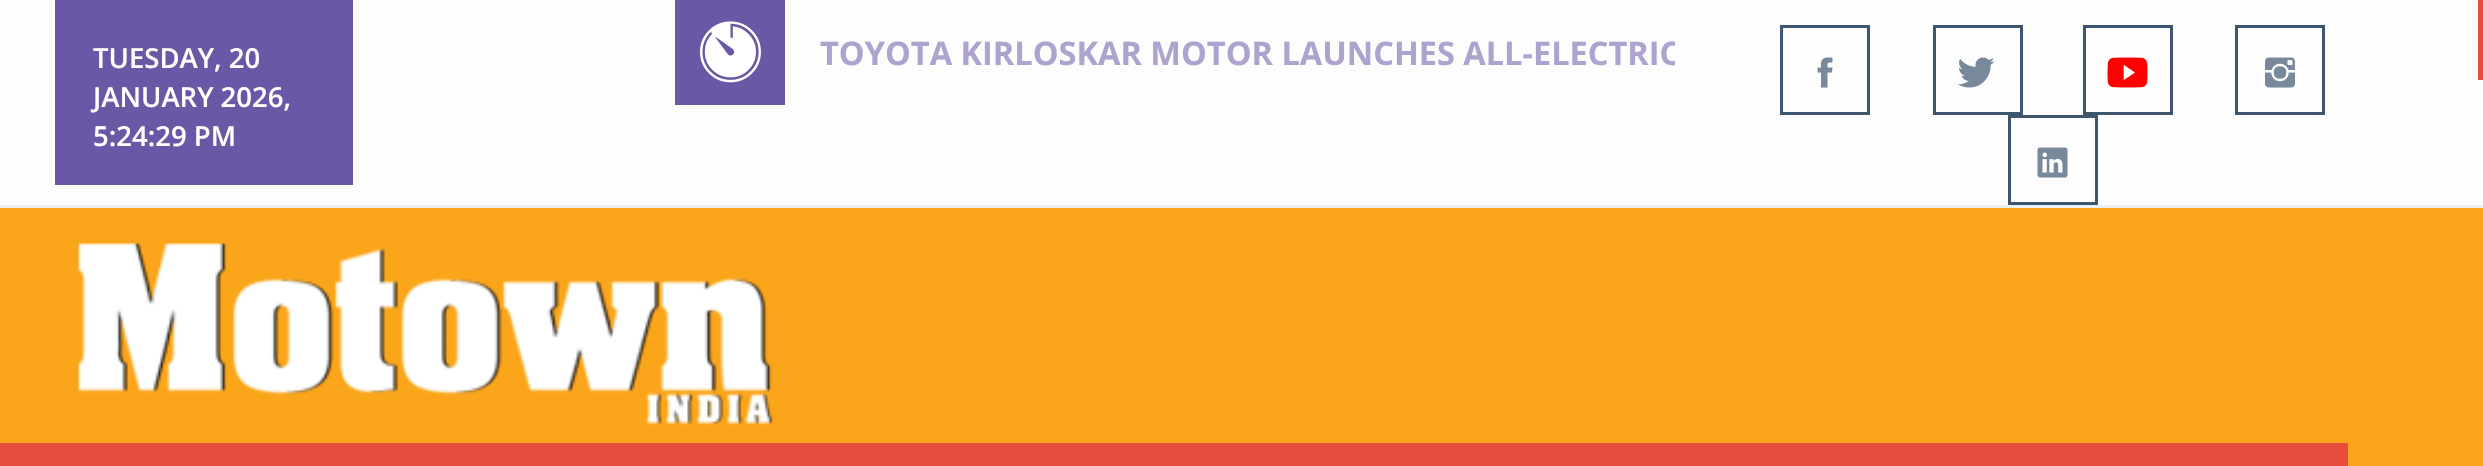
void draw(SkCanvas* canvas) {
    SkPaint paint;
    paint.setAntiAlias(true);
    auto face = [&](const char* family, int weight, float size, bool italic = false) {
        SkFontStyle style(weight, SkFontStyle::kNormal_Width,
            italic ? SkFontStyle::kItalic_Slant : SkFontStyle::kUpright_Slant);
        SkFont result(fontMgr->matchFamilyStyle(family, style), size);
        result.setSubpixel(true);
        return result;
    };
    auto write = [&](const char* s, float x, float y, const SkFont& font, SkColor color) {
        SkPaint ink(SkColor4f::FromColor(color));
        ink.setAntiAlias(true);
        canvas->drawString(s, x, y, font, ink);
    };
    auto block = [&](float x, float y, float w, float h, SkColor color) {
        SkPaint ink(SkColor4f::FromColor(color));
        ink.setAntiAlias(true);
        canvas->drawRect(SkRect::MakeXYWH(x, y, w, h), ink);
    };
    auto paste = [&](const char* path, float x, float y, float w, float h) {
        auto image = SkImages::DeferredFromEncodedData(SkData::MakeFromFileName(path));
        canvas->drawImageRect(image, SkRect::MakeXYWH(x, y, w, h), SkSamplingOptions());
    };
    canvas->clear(SkColorSetRGB(253, 253, 253));
    block(0, 205, 2483, 3, SkColorSetRGB(236, 240, 241));
    block(55, 0, 298, 185, SkColorSetRGB(106, 87, 166));
    auto kFont1 = face("Open Sans", 600, 27.5f);
    write("TUESDAY, 20", 93, 68, kFont1, SK_ColorWHITE);
    write("JANUARY 2026,", 93, 107, kFont1, SK_ColorWHITE);
    write("5:24:29 PM", 93, 146, kFont1, SK_ColorWHITE);
    block(675, 0, 110, 105, SkColorSetRGB(106, 87, 166));
    paste("pic1.png", 700, 21, 61, 62);
    canvas->save();
    canvas->clipRect(SkRect::MakeXYWH(820, 0, 855, 105));
    auto kFont2 = face("Open Sans", 700, 32.5f);
    write("TOYOTA KIRLOSKAR MOTOR LAUNCHES ALL-ELECTRIC", 820, 65, kFont2, SkColorSetRGB(173, 163, 206));
    canvas->restore();
    paint.setStyle(SkPaint::kStroke_Style);
    paint.setStrokeWidth(3);
    paint.setColor(SkColorSetRGB(61, 86, 110));
    canvas->drawRect(SkRect::MakeXYWH(1781.5f, 26.5f, 87, 87), paint);
    paste("pic2.png", 1817, 57, 16, 31);
    canvas->drawRect(SkRect::MakeXYWH(1934.5f, 26.5f, 87, 87), paint);
    paste("pic3.png", 1957, 57, 38, 31);
    canvas->drawRect(SkRect::MakeXYWH(2084.5f, 26.5f, 87, 87), paint);
    paste("pic4.png", 2107, 57, 41, 31);
    canvas->drawRect(SkRect::MakeXYWH(2236.5f, 26.5f, 87, 87), paint);
    paste("pic5.png", 2265, 57, 30, 31);
    canvas->drawRect(SkRect::MakeXYWH(2009.5f, 116.5f, 87, 87), paint);
    paste("pic6.png", 2037, 147, 31, 31);
    block(0, 208, 2483, 258, SkColorSetRGB(251, 166, 26));
    paste("pic7.png", 78, 243, 695, 182);
    block(2478, 0, 5, 80, SkColorSetRGB(231, 76, 60));
    block(0, 443, 2348, 23, SkColorSetRGB(231, 76, 60));
}
